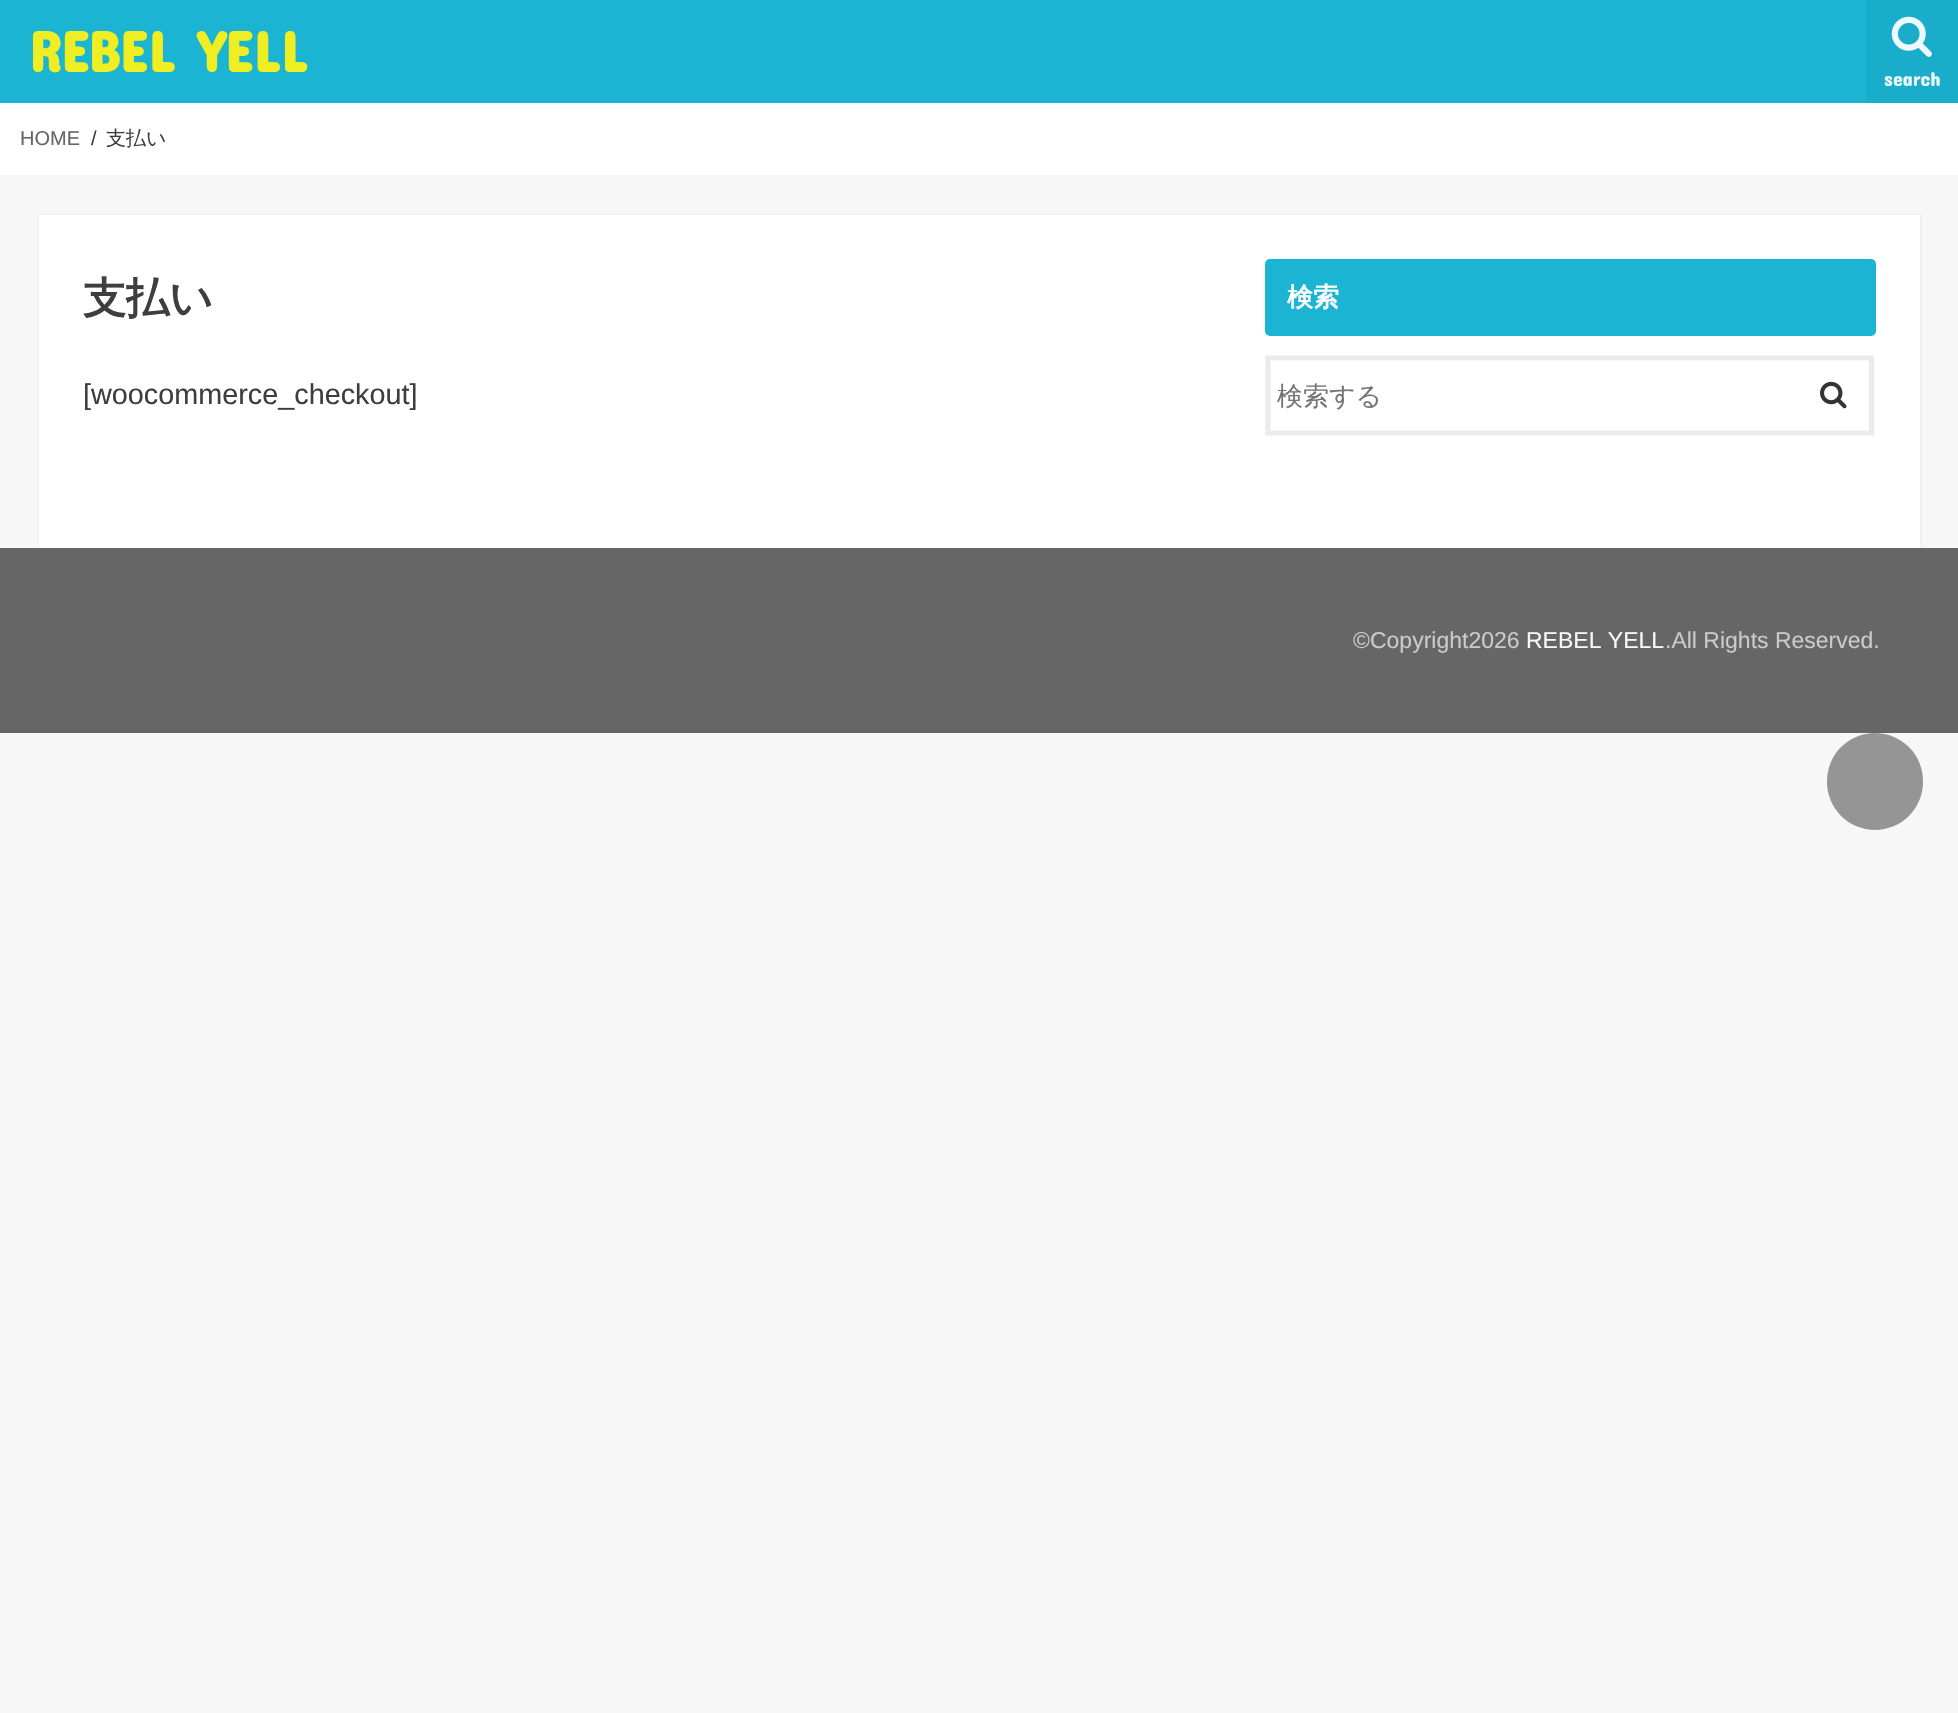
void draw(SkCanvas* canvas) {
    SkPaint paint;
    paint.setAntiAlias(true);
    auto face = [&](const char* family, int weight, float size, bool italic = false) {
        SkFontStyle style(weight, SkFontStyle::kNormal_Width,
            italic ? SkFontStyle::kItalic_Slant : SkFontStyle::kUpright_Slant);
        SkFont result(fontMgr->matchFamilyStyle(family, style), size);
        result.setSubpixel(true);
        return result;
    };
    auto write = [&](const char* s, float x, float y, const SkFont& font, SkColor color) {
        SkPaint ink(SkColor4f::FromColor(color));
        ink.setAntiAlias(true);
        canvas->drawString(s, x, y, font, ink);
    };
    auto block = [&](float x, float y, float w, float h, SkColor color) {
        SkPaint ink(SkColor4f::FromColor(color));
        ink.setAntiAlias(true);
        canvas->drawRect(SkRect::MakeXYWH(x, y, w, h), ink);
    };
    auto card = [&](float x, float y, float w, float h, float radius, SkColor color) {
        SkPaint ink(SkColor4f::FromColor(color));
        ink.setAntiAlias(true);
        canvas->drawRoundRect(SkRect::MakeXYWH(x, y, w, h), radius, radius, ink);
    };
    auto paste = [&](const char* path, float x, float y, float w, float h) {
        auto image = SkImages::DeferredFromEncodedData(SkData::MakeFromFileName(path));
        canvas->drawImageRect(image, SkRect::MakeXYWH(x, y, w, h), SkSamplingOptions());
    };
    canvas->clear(SkColorSetRGB(247, 247, 247));
    block(0, 0, 1866, 103, SkColorSetRGB(27, 180, 211));
    auto kFont1 = face("Concert One", 700, 57.5f);
    write("REBEL YELL", 29, 72, kFont1, SkColorSetRGB(238, 238, 34));
    block(1866, 0, 92, 103, SkColorSetRGB(26, 173, 203));
    paste("pic1.png", 1891, 16, 41, 41);
    auto kFont2 = face("Concert One", 400, 20);
    write("search", 1884, 86, kFont2, SkColorSetRGB(237, 249, 252));
    block(0, 103, 1958, 72, SK_ColorWHITE);
    auto kFont3 = face("Liberation Sans", 400, 20);
    write("HOME", 20, 145, kFont3, SkColorSetRGB(102, 102, 102));
    write("/", 91, 145, kFont3, SkColorSetRGB(62, 62, 62));
    auto kFont4 = face("WenQuanYi Zen Hei", 500, 20);
    write("支払い", 106, 145, kFont4, SkColorSetRGB(62, 62, 62));
    paint.setColor(SkColorSetRGB(221, 221, 221));
    paint.setMaskFilter(SkMaskFilter::MakeBlur(kNormal_SkBlurStyle, 1));
    canvas->drawRect(SkRect::MakeXYWH(39, 215, 1881, 333), paint);
    paint.setMaskFilter(nullptr);
    block(39, 215, 1881, 333, SK_ColorWHITE);
    auto kFont5 = face("WenQuanYi Zen Hei", 700, 43);
    write("支払い", 83, 313, kFont5, SkColorSetRGB(62, 62, 62));
    auto kFont6 = face("Liberation Sans", 400, 28.8f);
    write("[woocommerce_checkout]", 83, 404, kFont6, SkColorSetRGB(62, 62, 62));
    card(1265, 259, 611, 77, 5, SkColorSetRGB(27, 180, 211));
    auto kFont7 = face("WenQuanYi Zen Hei", 700, 26);
    write("検索", 1287, 306, kFont7, SK_ColorWHITE);
    paint.setStyle(SkPaint::kStroke_Style);
    paint.setStrokeWidth(5.2f);
    paint.setColor(SkColorSetRGB(235, 235, 235));
    canvas->drawPath(SkPathBuilder().moveTo(1268, 358).lineTo(1871.5f, 358).lineTo(1871.5f, 433).lineTo(1268, 433).close().detach(), paint);
    auto kFont8 = face("WenQuanYi Zen Hei", 500, 26);
    write("検索する", 1277, 405, kFont8, SkColorSetRGB(117, 117, 117));
    paste("pic2.png", 1820, 381, 27, 28);
    block(0, 548, 1958, 185, SkColorSetRGB(102, 102, 102));
    auto kFont9 = face("Liberation Sans", 400, 23);
    write("©Copyright2026", 1353, 648, kFont9, SkColorSetRGB(202, 202, 202));
    write("REBEL YELL", 1526, 648, kFont9, SkColorSetRGB(247, 247, 247));
    write(".All Rights Reserved.", 1665, 648, kFont9, SkColorSetRGB(202, 202, 202));
    card(1827, 733, 96, 97, 48, SkColorSetRGB(149, 149, 149));
}
